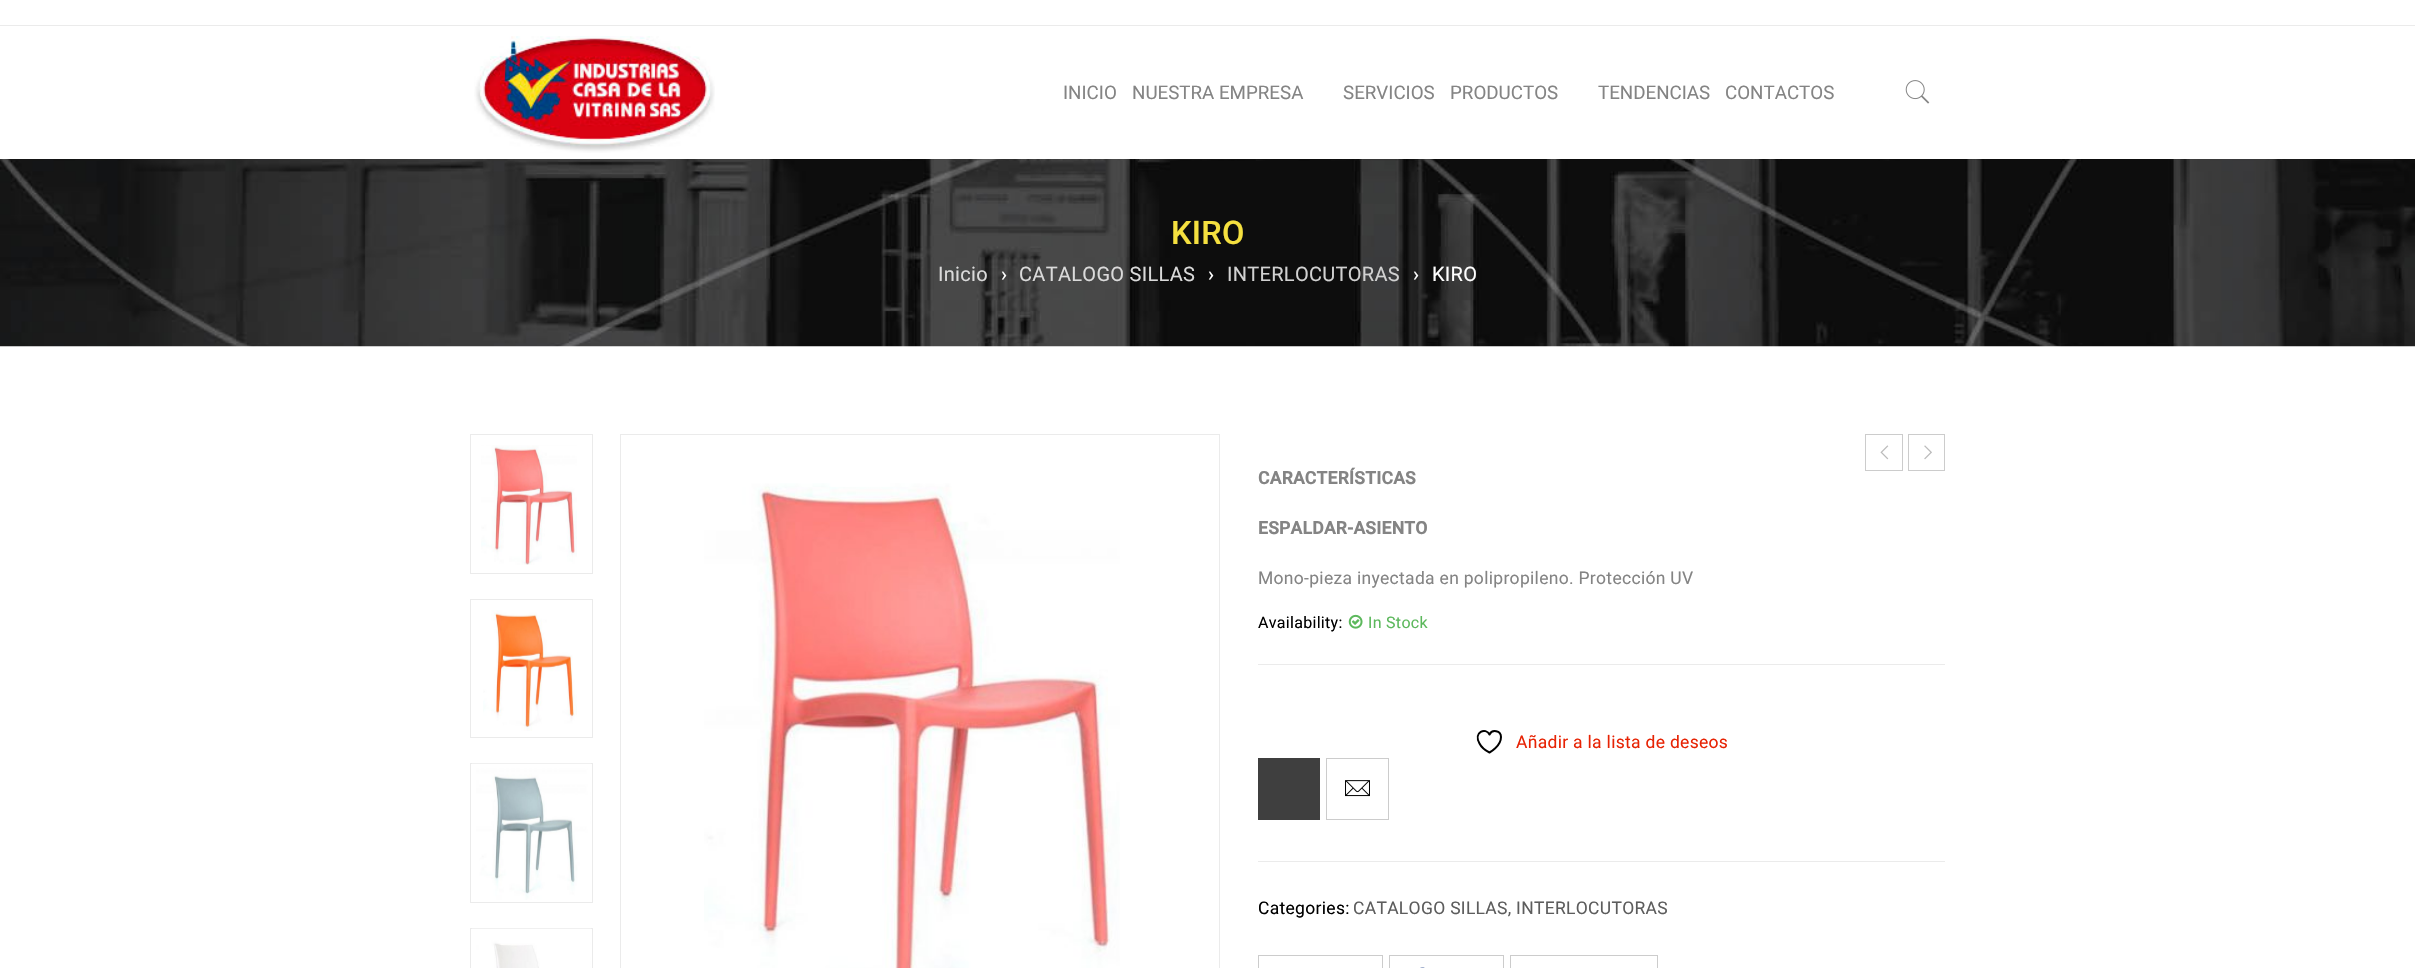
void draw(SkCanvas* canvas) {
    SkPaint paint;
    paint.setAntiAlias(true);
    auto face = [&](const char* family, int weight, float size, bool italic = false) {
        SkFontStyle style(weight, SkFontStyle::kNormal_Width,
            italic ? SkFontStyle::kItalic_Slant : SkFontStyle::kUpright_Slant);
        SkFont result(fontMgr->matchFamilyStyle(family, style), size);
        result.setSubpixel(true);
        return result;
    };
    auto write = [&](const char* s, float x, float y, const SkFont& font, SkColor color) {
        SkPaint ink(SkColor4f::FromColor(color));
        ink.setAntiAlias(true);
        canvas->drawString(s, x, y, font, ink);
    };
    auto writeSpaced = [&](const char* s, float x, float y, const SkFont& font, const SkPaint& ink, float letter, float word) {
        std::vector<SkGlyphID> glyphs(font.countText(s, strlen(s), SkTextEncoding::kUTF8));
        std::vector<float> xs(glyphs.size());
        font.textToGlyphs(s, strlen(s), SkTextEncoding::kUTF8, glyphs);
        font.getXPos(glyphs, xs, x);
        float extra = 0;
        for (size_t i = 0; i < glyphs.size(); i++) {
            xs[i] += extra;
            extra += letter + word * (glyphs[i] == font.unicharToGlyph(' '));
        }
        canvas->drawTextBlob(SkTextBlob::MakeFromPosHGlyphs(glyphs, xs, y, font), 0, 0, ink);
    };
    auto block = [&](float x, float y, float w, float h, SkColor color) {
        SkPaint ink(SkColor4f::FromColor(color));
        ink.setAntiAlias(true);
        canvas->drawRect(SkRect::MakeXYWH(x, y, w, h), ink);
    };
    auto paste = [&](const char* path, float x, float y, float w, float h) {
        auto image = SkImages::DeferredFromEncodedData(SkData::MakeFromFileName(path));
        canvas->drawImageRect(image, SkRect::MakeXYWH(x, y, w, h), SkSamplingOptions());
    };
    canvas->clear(SK_ColorWHITE);
    block(0, 25, 2415, 1, SkColorSetRGB(235, 235, 235));
    paste("pic1.png", 474, 36, 241, 117);
    auto kFont1 = face("Roboto", 400, 18.75f);
    write("INICIO", 1063, 99, kFont1, SkColorSetRGB(132, 132, 132));
    write("NUESTRA EMPRESA", 1132, 99, kFont1, SkColorSetRGB(132, 132, 132));
    write("SERVICIOS", 1343, 99, kFont1, SkColorSetRGB(132, 132, 132));
    write("PRODUCTOS", 1450, 99, kFont1, SkColorSetRGB(132, 132, 132));
    write("TENDENCIAS", 1598, 99, kFont1, SkColorSetRGB(132, 132, 132));
    write("CONTACTOS", 1725, 99, kFont1, SkColorSetRGB(132, 132, 132));
    paste("pic2.png", 1905, 80, 25, 24);
    paste("pic3.png", 0, 159, 2415, 188);
    auto kFont2 = face("Roboto", 500, 32.5f);
    paint.setColor(SkColorSetRGB(245, 224, 63));
    writeSpaced("KIRO", 1171, 244, kFont2, paint, 0.3f, 0);
    auto kFont3 = face("Roboto", 400, 20);
    paint.setColor(SkColorSetRGB(218, 218, 218));
    writeSpaced("Inicio", 938, 281, kFont3, paint, 0.3f, 0);
    paint.setColor(SK_ColorWHITE);
    writeSpaced("›", 1001, 281, kFont3, paint, 0.3f, 0);
    paint.setColor(SkColorSetRGB(218, 218, 218));
    writeSpaced("CATALOGO SILLAS", 1019, 281, kFont3, paint, 0.3f, 0);
    paint.setColor(SK_ColorWHITE);
    writeSpaced("›", 1208, 281, kFont3, paint, 0.3f, 0);
    paint.setColor(SkColorSetRGB(209, 209, 209));
    writeSpaced("INTERLOCUTORAS", 1227, 281, kFont3, paint, 0.3f, 0);
    paint.setColor(SK_ColorWHITE);
    writeSpaced("›", 1413, 281, kFont3, paint, 0.3f, 0);
    writeSpaced("KIRO", 1432, 281, kFont3, paint, 0.3f, 0);
    paint.setStyle(SkPaint::kStroke_Style);
    paint.setStrokeWidth(1);
    paint.setColor(SkColorSetRGB(235, 235, 235));
    canvas->drawRect(SkRect::MakeXYWH(470.5f, 434.5f, 122, 139), paint);
    paste("pic4.png", 481, 445, 96, 120);
    canvas->drawRect(SkRect::MakeXYWH(470.5f, 599.5f, 122, 138), paint);
    paste("pic5.png", 483, 610, 94, 121);
    canvas->drawRect(SkRect::MakeXYWH(470.5f, 763.5f, 122, 139), paint);
    paste("pic6.png", 472, 763, 119, 137);
    canvas->drawRect(SkRect::MakeXYWH(470.5f, 928.5f, 122, 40), paint);
    paste("pic7.png", 472, 928, 119, 40);
    canvas->drawRect(SkRect::MakeXYWH(620.5f, 434.5f, 599, 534), paint);
    paste("pic8.png", 704, 483, 416, 485);
    paint.setColor(SkColorSetRGB(204, 204, 204));
    canvas->drawRect(SkRect::MakeXYWH(1865.5f, 434.5f, 37, 36), paint);
    paste("pic9.png", 1880, 445, 9, 15);
    canvas->drawRect(SkRect::MakeXYWH(1908.5f, 434.5f, 36, 36), paint);
    paste("pic10.png", 1924, 445, 8, 15);
    auto kFont4 = face("Roboto", 700, 17.5f);
    paint.setStyle(SkPaint::kFill_Style);
    paint.setColor(SkColorSetRGB(132, 132, 132));
    writeSpaced("CARACTERÍSTICAS", 1258, 484, kFont4, paint, 0.3f, 0);
    writeSpaced("ESPALDAR-ASIENTO", 1258, 534, kFont4, paint, 0.3f, 0);
    auto kFont5 = face("Roboto", 400, 17.5f);
    writeSpaced("Mono-pieza inyectada en polipropileno. Protección UV", 1258, 584, kFont5, paint, 0.3f, 0);
    auto kFont6 = face("Roboto", 400, 16);
    paint.setColor(SK_ColorBLACK);
    writeSpaced("Availability:", 1258, 628, kFont6, paint, 0.3f, 0);
    paste("pic11.png", 1348, 614, 15, 15);
    paint.setColor(SkColorSetRGB(92, 184, 92));
    writeSpaced("In Stock", 1368, 628, kFont6, paint, 0.3f, 0);
    block(1258, 664, 687, 1, SkColorSetRGB(235, 235, 235));
    paint.setStyle(SkPaint::kStroke_Style);
    paint.setStrokeWidth(2);
    paint.setStrokeCap(SkPaint::kRound_Cap);
    paint.setStrokeJoin(SkPaint::kRound_Join);
    paint.setColor(SK_ColorBLACK);
    canvas->drawPath(SkPathBuilder().moveTo(1501, 737).cubicTo(1501, 730.5f, 1492, 729, 1489.5f, 734.5f).cubicTo(1486, 727, 1473, 732, 1479.5f, 743.5f).cubicTo(1481.5f, 747.5f, 1485.5f, 750.5f, 1489.5f, 752.5f).cubicTo(1489.5f, 752.5f, 1501, 746.5f, 1501, 737).close().detach(), paint);
    paint.setStyle(SkPaint::kFill_Style);
    paint.setColor(SkColorSetRGB(231, 35, 4));
    writeSpaced("Añadir a la lista de deseos", 1516, 748, kFont5, paint, 0.3f, 0);
    block(1258, 758, 62, 62, SkColorSetRGB(63, 63, 63));
    paint.setStyle(SkPaint::kStroke_Style);
    paint.setStrokeWidth(1);
    paint.setStrokeCap(SkPaint::kButt_Cap);
    paint.setStrokeJoin(SkPaint::kMiter_Join);
    paint.setColor(SkColorSetRGB(204, 204, 204));
    canvas->drawRect(SkRect::MakeXYWH(1326.5f, 758.5f, 62, 61), paint);
    paste("pic12.png", 1345, 780, 25, 17);
    block(1258, 861, 687, 1, SkColorSetRGB(235, 235, 235));
    paint.setStyle(SkPaint::kFill_Style);
    paint.setColor(SK_ColorBLACK);
    writeSpaced("Categories:", 1258, 914, kFont5, paint, 0.3f, 0);
    paint.setColor(SkColorSetRGB(93, 93, 93));
    writeSpaced("CATALOGO SILLAS, INTERLOCUTORAS", 1353, 914, kFont5, paint, 0.3f, 0);
    paint.setStyle(SkPaint::kStroke_Style);
    paint.setColor(SkColorSetRGB(204, 204, 204));
    canvas->drawRect(SkRect::MakeXYWH(1258.5f, 955.5f, 124, 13), paint);
    canvas->drawRect(SkRect::MakeXYWH(1389.5f, 955.5f, 114, 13), paint);
    paste("pic13.png", 1420, 967, 5, 1);
    canvas->drawRect(SkRect::MakeXYWH(1510.5f, 955.5f, 147, 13), paint);
}
